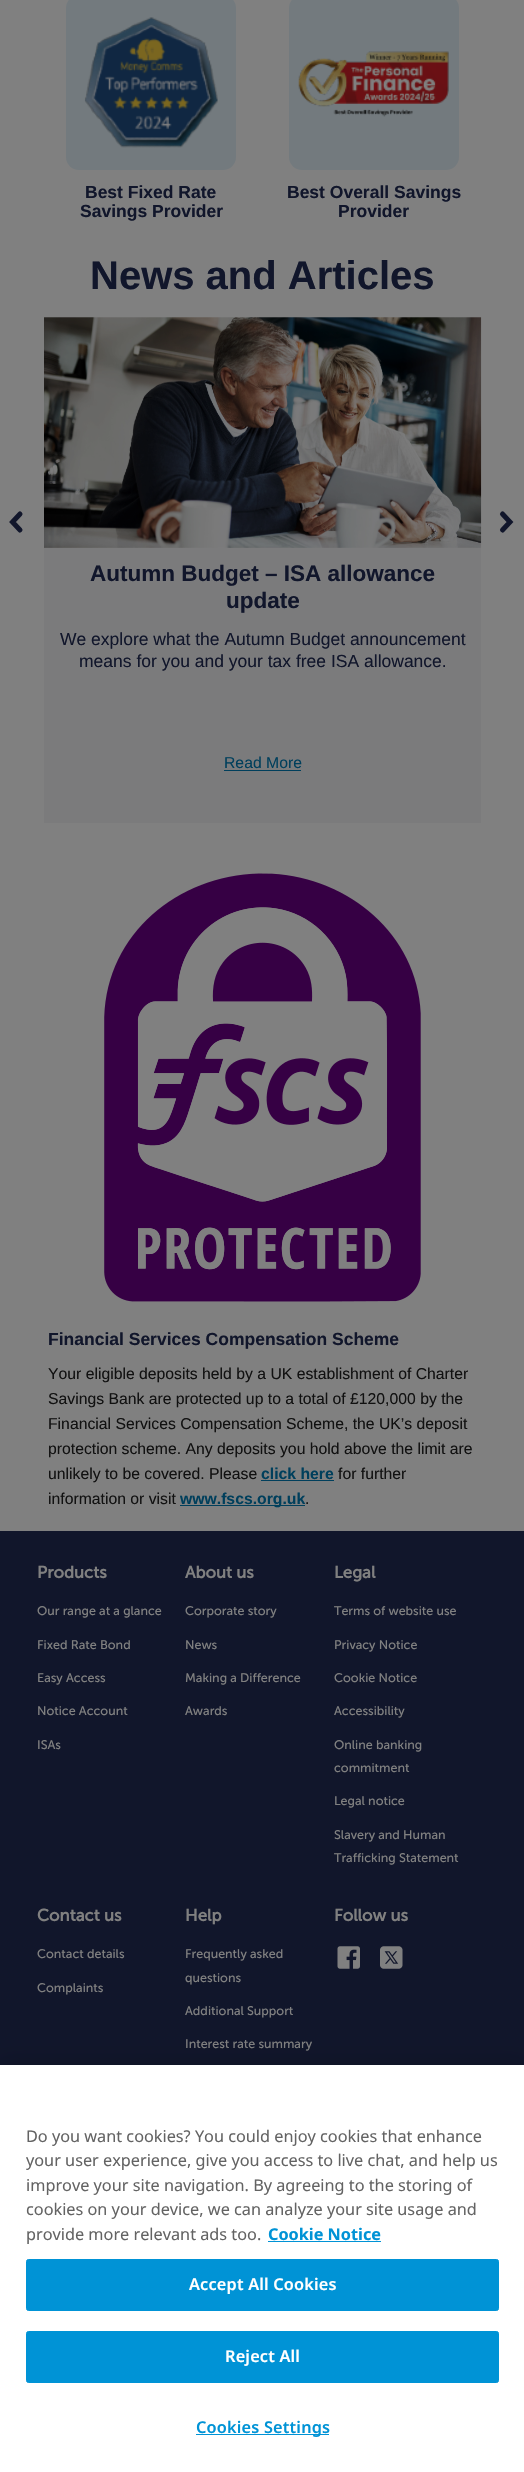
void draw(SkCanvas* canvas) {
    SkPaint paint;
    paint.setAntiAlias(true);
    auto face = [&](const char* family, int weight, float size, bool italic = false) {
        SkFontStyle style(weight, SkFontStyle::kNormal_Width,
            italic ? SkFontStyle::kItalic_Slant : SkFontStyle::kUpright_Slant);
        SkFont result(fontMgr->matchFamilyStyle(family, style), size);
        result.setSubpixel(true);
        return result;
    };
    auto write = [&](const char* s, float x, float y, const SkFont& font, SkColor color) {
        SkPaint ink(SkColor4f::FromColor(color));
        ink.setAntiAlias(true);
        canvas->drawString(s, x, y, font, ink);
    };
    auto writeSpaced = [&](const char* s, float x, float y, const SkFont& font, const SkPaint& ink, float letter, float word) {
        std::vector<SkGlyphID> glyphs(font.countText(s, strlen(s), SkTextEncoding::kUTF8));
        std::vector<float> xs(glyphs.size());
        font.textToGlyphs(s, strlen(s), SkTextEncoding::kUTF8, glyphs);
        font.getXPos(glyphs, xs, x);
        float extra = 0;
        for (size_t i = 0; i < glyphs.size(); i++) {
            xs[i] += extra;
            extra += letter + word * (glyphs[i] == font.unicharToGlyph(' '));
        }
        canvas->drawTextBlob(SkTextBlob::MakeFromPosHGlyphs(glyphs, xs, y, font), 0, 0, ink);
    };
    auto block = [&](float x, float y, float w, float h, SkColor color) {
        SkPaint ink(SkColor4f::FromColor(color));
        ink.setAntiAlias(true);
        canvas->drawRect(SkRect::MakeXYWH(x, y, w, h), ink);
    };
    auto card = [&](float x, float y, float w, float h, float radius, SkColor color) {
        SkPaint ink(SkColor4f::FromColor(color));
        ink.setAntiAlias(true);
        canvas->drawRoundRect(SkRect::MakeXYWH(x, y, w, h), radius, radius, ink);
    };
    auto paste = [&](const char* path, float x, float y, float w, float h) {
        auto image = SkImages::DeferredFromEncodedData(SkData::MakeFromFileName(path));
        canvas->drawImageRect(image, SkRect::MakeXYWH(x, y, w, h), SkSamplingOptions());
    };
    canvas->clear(SkColorSetRGB(128, 128, 128));
    card(66, -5, 170, 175, 13, SkColorSetRGB(115, 122, 126));
    paste("pic1.png", 84, 17, 134, 131);
    auto kFont1 = face("Liberation Sans", 700, 17.5f);
    write("Best Fixed Rate", 85, 198, kFont1, SkColorSetRGB(17, 22, 43));
    write("Savings Provider", 80, 217, kFont1, SkColorSetRGB(17, 22, 43));
    card(289, -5, 170, 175, 13, SkColorSetRGB(115, 122, 126));
    paste("pic2.png", 298, 51, 151, 66);
    write("Best Overall Savings", 287, 198, kFont1, SkColorSetRGB(17, 22, 43));
    write("Provider", 338, 217, kFont1, SkColorSetRGB(17, 22, 43));
    auto kFont2 = face("Liberation Sans", 700, 40);
    write("News and Articles", 90, 289, kFont2, SkColorSetRGB(17, 22, 43));
    paint.setStyle(SkPaint::kStroke_Style);
    paint.setStrokeWidth(5);
    paint.setStrokeCap(SkPaint::kRound_Cap);
    paint.setColor(SkColorSetRGB(17, 22, 43));
    canvas->drawPath(SkPathBuilder().moveTo(20, 514).lineTo(12.5f, 522).lineTo(20, 530).detach(), paint);
    canvas->drawPath(SkPathBuilder().moveTo(502.5f, 514).lineTo(510, 522).lineTo(502.5f, 530).detach(), paint);
    block(44, 547, 437, 276, SkColorSetRGB(123, 123, 124));
    paste("pic3.png", 44, 317, 438, 231);
    auto kFont3 = face("Liberation Sans", 700, 22.5f);
    write("Autumn Budget – ISA allowance", 90, 581, kFont3, SkColorSetRGB(17, 22, 43));
    write("update", 226, 608, kFont3, SkColorSetRGB(17, 22, 43));
    auto kFont4 = face("Liberation Sans", 400, 17.5f);
    write("We explore what the Autumn Budget announcement", 60, 645, kFont4, SkColorSetRGB(17, 22, 43));
    write("means for you and your tax free ISA allowance.", 79, 667, kFont4, SkColorSetRGB(17, 22, 43));
    auto kFont5 = face("Liberation Sans", 400, 15.75f);
    write("Read More", 224, 768, kFont5, SkColorSetRGB(0, 63, 92));
    block(224, 770, 77, 1, SkColorSetRGB(0, 63, 92));
    paste("pic4.png", 104, 873, 317, 429);
    write("Financial Services Compensation Scheme", 48, 1345, kFont1, SkColorSetRGB(17, 22, 43));
    write("Your eligible deposits held by a UK establishment of Charter", 48, 1379, kFont5, SkColorSetRGB(17, 17, 17));
    write("Savings Bank are protected up to a total of £120,000 by the", 48, 1404, kFont5, SkColorSetRGB(17, 17, 17));
    write("Financial Services Compensation Scheme, the UK’s deposit", 48, 1429, kFont5, SkColorSetRGB(17, 17, 17));
    write("protection scheme. Any deposits you hold above the limit are", 48, 1454, kFont5, SkColorSetRGB(17, 17, 17));
    write("unlikely to be covered. Please", 48, 1479, kFont5, SkColorSetRGB(17, 17, 17));
    auto kFont6 = face("Liberation Sans", 700, 15.75f);
    write("click here", 261, 1479, kFont6, SkColorSetRGB(0, 63, 92));
    block(261, 1480, 73, 1, SkColorSetRGB(0, 63, 92));
    write("for further", 338, 1479, kFont5, SkColorSetRGB(17, 17, 17));
    write("information or visit", 48, 1504, kFont5, SkColorSetRGB(17, 17, 17));
    block(180, 1505, 125, 1, SkColorSetRGB(0, 63, 92));
    write("www.fscs.org.uk", 180, 1504, kFont6, SkColorSetRGB(0, 63, 92));
    write(".", 305, 1504, kFont5, SkColorSetRGB(17, 17, 17));
    block(0, 1531, 524, 534, SkColorSetRGB(17, 22, 43));
    auto kFont7 = face("Museo Sans", 700, 16.75f);
    write("Products", 37, 1578, kFont7, SkColorSetRGB(128, 128, 128));
    auto kFont8 = face("Museo Sans", 400, 12.5f);
    write("Our range at a glance", 37, 1615, kFont8, SkColorSetRGB(128, 128, 128));
    write("Fixed Rate Bond", 37, 1649, kFont8, SkColorSetRGB(128, 128, 128));
    write("Easy Access", 37, 1682, kFont8, SkColorSetRGB(128, 128, 128));
    write("Notice Account", 37, 1715, kFont8, SkColorSetRGB(128, 128, 128));
    write("ISAs", 37, 1749, kFont8, SkColorSetRGB(128, 128, 128));
    write("About us", 185, 1578, kFont7, SkColorSetRGB(128, 128, 128));
    write("Corporate story", 185, 1615, kFont8, SkColorSetRGB(128, 128, 128));
    write("News", 185, 1649, kFont8, SkColorSetRGB(128, 128, 128));
    write("Making a Difference", 185, 1682, kFont8, SkColorSetRGB(128, 128, 128));
    write("Awards", 185, 1715, kFont8, SkColorSetRGB(128, 128, 128));
    write("Legal", 334, 1578, kFont7, SkColorSetRGB(128, 128, 128));
    write("Terms of website use", 334, 1615, kFont8, SkColorSetRGB(128, 128, 128));
    write("Privacy Notice", 334, 1649, kFont8, SkColorSetRGB(128, 128, 128));
    write("Cookie Notice", 334, 1682, kFont8, SkColorSetRGB(128, 128, 128));
    write("Accessibility", 334, 1715, kFont8, SkColorSetRGB(128, 128, 128));
    write("Online banking", 334, 1749, kFont8, SkColorSetRGB(128, 128, 128));
    write("commitment", 334, 1772, kFont8, SkColorSetRGB(128, 128, 128));
    write("Legal notice", 334, 1805, kFont8, SkColorSetRGB(128, 128, 128));
    write("Slavery and Human", 334, 1839, kFont8, SkColorSetRGB(128, 128, 128));
    write("Trafficking Statement", 334, 1862, kFont8, SkColorSetRGB(128, 128, 128));
    write("Contact us", 37, 1921, kFont7, SkColorSetRGB(128, 128, 128));
    write("Contact details", 37, 1958, kFont8, SkColorSetRGB(128, 128, 128));
    write("Complaints", 37, 1992, kFont8, SkColorSetRGB(128, 128, 128));
    write("Help", 185, 1921, kFont7, SkColorSetRGB(128, 128, 128));
    write("Frequently asked", 185, 1958, kFont8, SkColorSetRGB(128, 128, 128));
    write("questions", 185, 1982, kFont8, SkColorSetRGB(128, 128, 128));
    write("Additional Support", 185, 2015, kFont8, SkColorSetRGB(128, 128, 128));
    write("Interest rate summary", 185, 2048, kFont8, SkColorSetRGB(128, 128, 128));
    write("Follow us", 334, 1921, kFont7, SkColorSetRGB(128, 128, 128));
    paste("pic5.png", 337, 1946, 23, 23);
    paste("pic6.png", 380, 1946, 23, 23);
    paint.setStyle(SkPaint::kFill_Style);
    paint.setColor(SkColorSetARGB(51, 0, 0, 0));
    paint.setMaskFilter(SkMaskFilter::MakeBlur(kNormal_SkBlurStyle, 11));
    canvas->drawRect(SkRect::MakeXYWH(0, 2065, 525, 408), paint);
    paint.setMaskFilter(nullptr);
    block(0, 2065, 524, 407, SK_ColorWHITE);
    auto kFont9 = face("Noto Sans", 400, 16.25f);
    write("Do you want cookies? You could enjoy cookies that enhance", 26, 2142, kFont9, SkColorSetRGB(99, 99, 99));
    write("your user experience, give you access to live chat, and help us", 26, 2166, kFont9, SkColorSetRGB(99, 99, 99));
    write("improve your site navigation. By agreeing to the storing of", 26, 2191, kFont9, SkColorSetRGB(99, 99, 99));
    write("cookies on your device, we can analyze your site usage and", 26, 2215, kFont9, SkColorSetRGB(99, 99, 99));
    write("provide more relevant ads too.", 26, 2240, kFont9, SkColorSetRGB(99, 99, 99));
    auto kFont10 = face("Noto Sans", 700, 16.25f);
    write("Cookie Notice", 268, 2240, kFont10, SkColorSetRGB(0, 147, 214));
    block(268, 2241, 113, 1, SkColorSetRGB(0, 147, 214));
    paint.setColor(SkColorSetRGB(0, 147, 214));
    canvas->drawRoundRect(SkRect::MakeXYWH(26.5f, 2259.5f, 472, 51), 2, 2, paint);
    paint.setStyle(SkPaint::kStroke_Style);
    paint.setStrokeWidth(1);
    paint.setStrokeCap(SkPaint::kButt_Cap);
    canvas->drawRoundRect(SkRect::MakeXYWH(26.5f, 2259.5f, 472, 51), 2, 2, paint);
    auto kFont11 = face("Noto Sans", 600, 16.25f);
    paint.setStyle(SkPaint::kFill_Style);
    paint.setColor(SK_ColorWHITE);
    writeSpaced("Accept All Cookies", 189, 2290, kFont11, paint, 0.2f, 0);
    paint.setColor(SkColorSetRGB(0, 147, 214));
    canvas->drawRoundRect(SkRect::MakeXYWH(26.5f, 2331.5f, 472, 51), 2, 2, paint);
    paint.setStyle(SkPaint::kStroke_Style);
    canvas->drawRoundRect(SkRect::MakeXYWH(26.5f, 2331.5f, 472, 51), 2, 2, paint);
    paint.setStyle(SkPaint::kFill_Style);
    paint.setColor(SK_ColorWHITE);
    writeSpaced("Reject All", 225, 2362, kFont11, paint, 0.2f, 0);
    block(196, 2434, 133, 1, SkColorSetRGB(0, 147, 214));
    paint.setColor(SkColorSetRGB(0, 147, 214));
    writeSpaced("Cookies Settings", 196, 2433, kFont11, paint, 0.2f, 0);
}
